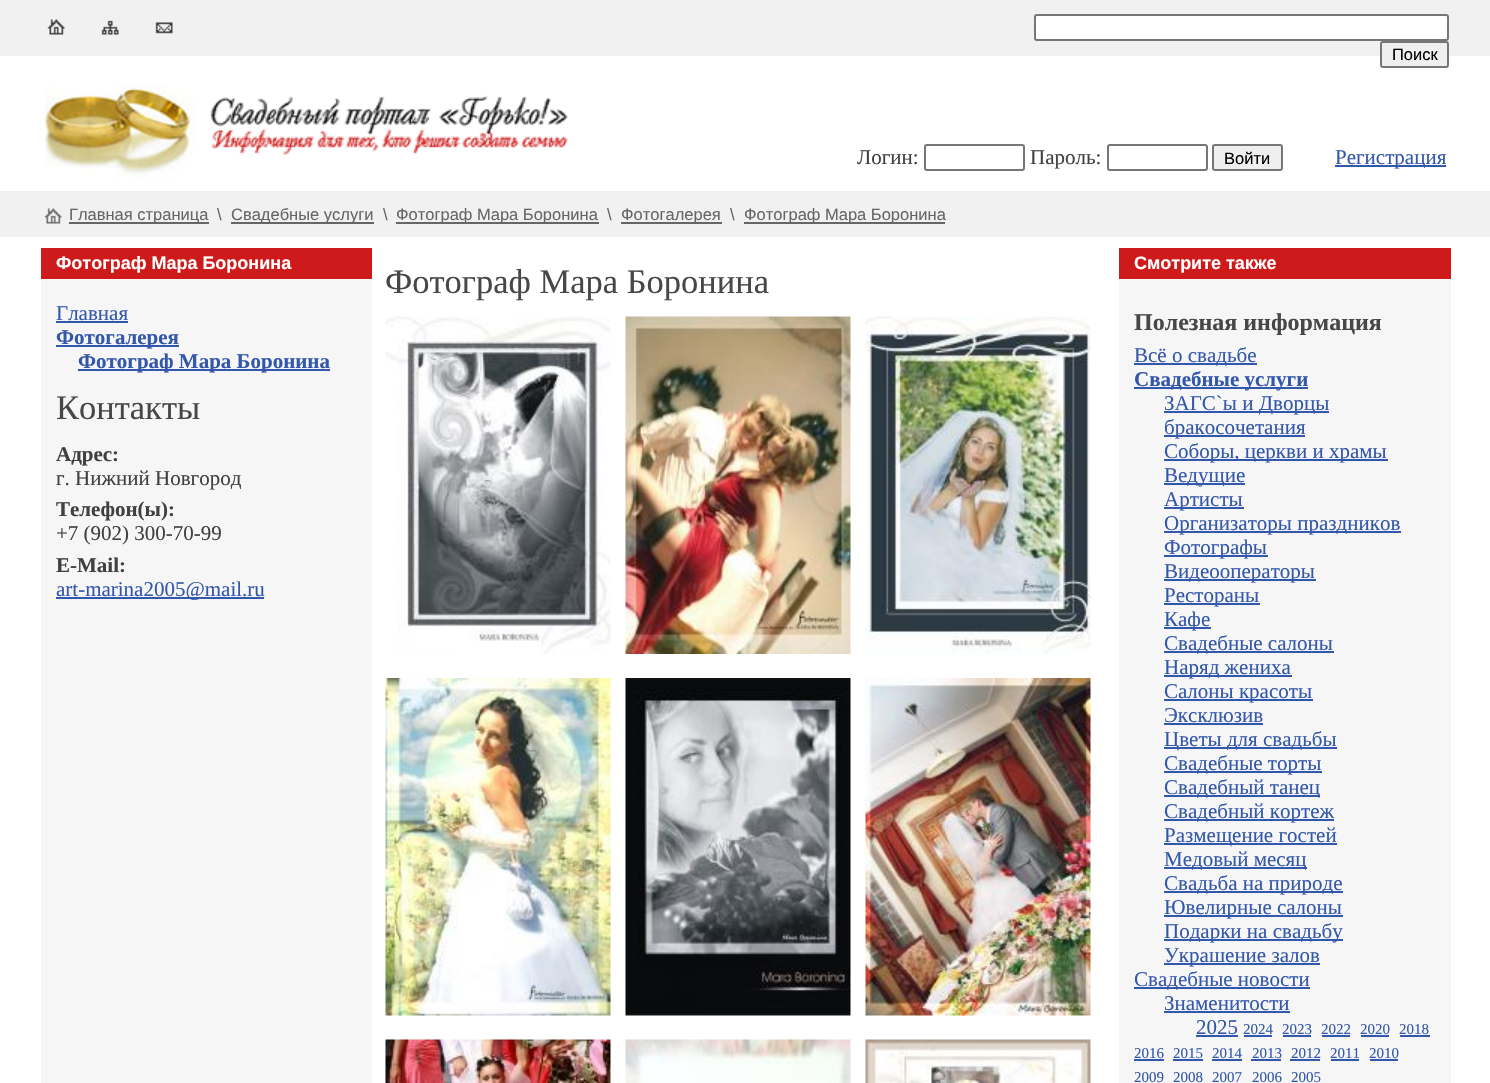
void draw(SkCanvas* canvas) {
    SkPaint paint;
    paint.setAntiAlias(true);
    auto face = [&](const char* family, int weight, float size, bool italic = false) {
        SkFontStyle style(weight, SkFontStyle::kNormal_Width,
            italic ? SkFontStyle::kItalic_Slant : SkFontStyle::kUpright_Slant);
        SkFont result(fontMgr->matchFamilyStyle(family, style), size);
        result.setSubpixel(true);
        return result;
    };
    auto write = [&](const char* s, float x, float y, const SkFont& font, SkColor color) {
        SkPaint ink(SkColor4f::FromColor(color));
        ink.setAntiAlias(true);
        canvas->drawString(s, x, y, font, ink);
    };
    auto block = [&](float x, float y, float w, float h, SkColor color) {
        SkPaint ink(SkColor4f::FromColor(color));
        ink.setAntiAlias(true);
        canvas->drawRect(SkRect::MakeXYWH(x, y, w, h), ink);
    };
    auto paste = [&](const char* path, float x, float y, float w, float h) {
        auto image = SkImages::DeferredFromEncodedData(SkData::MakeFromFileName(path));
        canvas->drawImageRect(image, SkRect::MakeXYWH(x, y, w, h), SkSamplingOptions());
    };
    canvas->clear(SK_ColorWHITE);
    block(0, 0, 1490, 56, SkColorSetRGB(241, 241, 241));
    paste("pic1.png", 47, 19, 18, 16);
    paste("pic2.png", 101, 20, 18, 15);
    paste("pic3.png", 155, 22, 18, 12);
    paint.setColor(SK_ColorWHITE);
    canvas->drawRoundRect(SkRect::MakeXYWH(1035, 15, 413, 25), 2, 2, paint);
    paint.setStyle(SkPaint::kStroke_Style);
    paint.setStrokeWidth(2);
    paint.setColor(SkColorSetRGB(118, 118, 118));
    canvas->drawRoundRect(SkRect::MakeXYWH(1035, 15, 413, 25), 2, 2, paint);
    paint.setStyle(SkPaint::kFill_Style);
    paint.setColor(SkColorSetRGB(239, 239, 239));
    canvas->drawRoundRect(SkRect::MakeXYWH(1381, 42, 67, 25), 2, 2, paint);
    paint.setStyle(SkPaint::kStroke_Style);
    paint.setColor(SkColorSetRGB(118, 118, 118));
    canvas->drawRoundRect(SkRect::MakeXYWH(1381, 42, 67, 25), 2, 2, paint);
    auto kFont1 = face("Liberation Sans", 400, 16.5f);
    write("Поиск", 1392, 60, kFont1, SK_ColorBLACK);
    paste("pic4.png", 45, 84, 150, 95);
    paste("pic5.png", 210, 95, 358, 60);
    auto kFont2 = face("Liberation Serif", 400, 21);
    write("Логин:", 857, 164, kFont2, SkColorSetRGB(64, 64, 64));
    canvas->drawRoundRect(SkRect::MakeXYWH(925, 145, 99, 25), 2, 2, paint);
    write("Пароль:", 1030, 164, kFont2, SkColorSetRGB(64, 64, 64));
    canvas->drawRoundRect(SkRect::MakeXYWH(1108, 145, 99, 25), 2, 2, paint);
    paint.setStyle(SkPaint::kFill_Style);
    paint.setColor(SkColorSetRGB(239, 239, 239));
    canvas->drawRoundRect(SkRect::MakeXYWH(1213, 145, 69, 25), 2, 2, paint);
    paint.setStyle(SkPaint::kStroke_Style);
    paint.setColor(SkColorSetRGB(118, 118, 118));
    canvas->drawRoundRect(SkRect::MakeXYWH(1213, 145, 69, 25), 2, 2, paint);
    write("Войти", 1224, 164, kFont1, SK_ColorBLACK);
    block(1335, 165, 111, 2, SkColorSetRGB(51, 87, 170));
    write("Регистрация", 1335, 164, kFont2, SkColorSetRGB(51, 87, 170));
    block(0, 191, 1490, 46, SkColorSetRGB(241, 241, 241));
    paste("pic6.png", 45, 208, 17, 16);
    block(69, 222, 140, 2, SkColorSetRGB(102, 102, 102));
    write("Главная страница", 69, 220, kFont1, SkColorSetRGB(102, 102, 102));
    write("\\", 217, 220, kFont1, SkColorSetRGB(102, 102, 102));
    block(231, 222, 143, 2, SkColorSetRGB(102, 102, 102));
    write("Свадебные услуги", 231, 220, kFont1, SkColorSetRGB(102, 102, 102));
    write("\\", 383, 220, kFont1, SkColorSetRGB(102, 102, 102));
    block(396, 222, 203, 2, SkColorSetRGB(102, 102, 102));
    write("Фотограф Мара Боронина", 396, 220, kFont1, SkColorSetRGB(102, 102, 102));
    write("\\", 607, 220, kFont1, SkColorSetRGB(102, 102, 102));
    block(621, 222, 101, 2, SkColorSetRGB(102, 102, 102));
    write("Фотогалерея", 621, 220, kFont1, SkColorSetRGB(102, 102, 102));
    write("\\", 730, 220, kFont1, SkColorSetRGB(102, 102, 102));
    block(744, 222, 201, 2, SkColorSetRGB(102, 102, 102));
    write("Фотограф Мара Боронина", 744, 220, kFont1, SkColorSetRGB(102, 102, 102));
    block(41, 279, 331, 804, SkColorSetRGB(246, 246, 246));
    block(41, 248, 331, 31, SkColorSetRGB(206, 26, 26));
    auto kFont3 = face("Liberation Sans", 700, 18);
    write("Фотограф Мара Боронина", 56, 269, kFont3, SK_ColorWHITE);
    write("Главная", 56, 320, kFont2, SkColorSetRGB(51, 87, 170));
    block(56, 321, 72, 2, SkColorSetRGB(51, 87, 170));
    block(56, 345, 123, 2, SkColorSetRGB(51, 87, 170));
    auto kFont4 = face("Liberation Serif", 700, 21);
    write("Фотогалерея", 56, 344, kFont4, SkColorSetRGB(51, 87, 170));
    block(78, 369, 252, 2, SkColorSetRGB(51, 87, 170));
    write("Фотограф Мара Боронина", 78, 368, kFont4, SkColorSetRGB(51, 87, 170));
    auto kFont5 = face("Liberation Serif", 400, 34.5f);
    write("Контакты", 56, 419, kFont5, SkColorSetRGB(71, 71, 71));
    write("Адрес:", 56, 461, kFont4, SkColorSetRGB(64, 64, 64));
    write("г. Нижний Новгород", 56, 485, kFont2, SkColorSetRGB(64, 64, 64));
    write("Телефон(ы):", 56, 516, kFont4, SkColorSetRGB(64, 64, 64));
    write("+7 (902) 300-70-99", 56, 540, kFont2, SkColorSetRGB(64, 64, 64));
    write("E-Mail:", 56, 572, kFont4, SkColorSetRGB(64, 64, 64));
    block(56, 597, 208, 2, SkColorSetRGB(51, 87, 170));
    write("art-marina2005@mail.ru", 56, 596, kFont2, SkColorSetRGB(51, 87, 170));
    write("Фотограф Мара Боронина", 385, 293, kFont5, SkColorSetRGB(71, 71, 71));
    paste("pic7.png", 385, 316, 226, 338);
    paste("pic8.png", 625, 316, 226, 338);
    paste("pic9.png", 865, 316, 226, 338);
    paste("pic10.png", 385, 678, 226, 338);
    paste("pic11.png", 625, 678, 226, 338);
    paste("pic12.png", 865, 678, 226, 338);
    paste("pic13.png", 385, 1039, 226, 44);
    paste("pic14.png", 625, 1039, 226, 44);
    paste("pic15.png", 865, 1039, 226, 44);
    block(1119, 279, 332, 804, SkColorSetRGB(246, 246, 246));
    block(1119, 248, 332, 31, SkColorSetRGB(206, 26, 26));
    write("Смотрите также", 1134, 269, kFont3, SK_ColorWHITE);
    auto kFont6 = face("Liberation Serif", 700, 24);
    write("Полезная информация", 1134, 330, kFont6, SkColorSetRGB(71, 71, 71));
    block(1134, 363, 123, 2, SkColorSetRGB(51, 87, 170));
    write("Всё о свадьбе", 1134, 362, kFont2, SkColorSetRGB(51, 87, 170));
    block(1134, 387, 174, 2, SkColorSetRGB(51, 87, 170));
    write("Свадебные услуги", 1134, 386, kFont4, SkColorSetRGB(51, 87, 170));
    block(1164, 411, 165, 2, SkColorSetRGB(51, 87, 170));
    write("ЗАГС`ы и Дворцы", 1164, 410, kFont2, SkColorSetRGB(51, 87, 170));
    block(1164, 435, 141, 2, SkColorSetRGB(51, 87, 170));
    write("бракосочетания", 1164, 434, kFont2, SkColorSetRGB(51, 87, 170));
    block(1164, 459, 224, 2, SkColorSetRGB(51, 87, 170));
    write("Соборы, церкви и храмы", 1164, 458, kFont2, SkColorSetRGB(51, 87, 170));
    block(1164, 483, 81, 2, SkColorSetRGB(51, 87, 170));
    write("Ведущие", 1164, 482, kFont2, SkColorSetRGB(51, 87, 170));
    block(1164, 507, 80, 2, SkColorSetRGB(51, 87, 170));
    write("Артисты", 1164, 506, kFont2, SkColorSetRGB(51, 87, 170));
    block(1164, 531, 237, 2, SkColorSetRGB(51, 87, 170));
    write("Организаторы праздников", 1164, 530, kFont2, SkColorSetRGB(51, 87, 170));
    block(1164, 555, 104, 2, SkColorSetRGB(51, 87, 170));
    write("Фотографы", 1164, 554, kFont2, SkColorSetRGB(51, 87, 170));
    block(1164, 579, 152, 2, SkColorSetRGB(51, 87, 170));
    write("Видеооператоры", 1164, 578, kFont2, SkColorSetRGB(51, 87, 170));
    block(1164, 603, 96, 2, SkColorSetRGB(51, 87, 170));
    write("Рестораны", 1164, 602, kFont2, SkColorSetRGB(51, 87, 170));
    block(1164, 627, 47, 2, SkColorSetRGB(51, 87, 170));
    write("Кафе", 1164, 626, kFont2, SkColorSetRGB(51, 87, 170));
    block(1164, 651, 170, 2, SkColorSetRGB(51, 87, 170));
    write("Свадебные салоны", 1164, 650, kFont2, SkColorSetRGB(51, 87, 170));
    block(1164, 675, 128, 2, SkColorSetRGB(51, 87, 170));
    write("Наряд жениха", 1164, 674, kFont2, SkColorSetRGB(51, 87, 170));
    block(1164, 699, 149, 2, SkColorSetRGB(51, 87, 170));
    write("Cалоны красоты", 1164, 698, kFont2, SkColorSetRGB(51, 87, 170));
    write("Эксклюзив", 1164, 722, kFont2, SkColorSetRGB(51, 87, 170));
    block(1164, 723, 99, 2, SkColorSetRGB(51, 87, 170));
    block(1164, 747, 173, 2, SkColorSetRGB(51, 87, 170));
    write("Цветы для свадьбы", 1164, 746, kFont2, SkColorSetRGB(51, 87, 170));
    block(1164, 771, 158, 2, SkColorSetRGB(51, 87, 170));
    write("Свадебные торты", 1164, 770, kFont2, SkColorSetRGB(51, 87, 170));
    block(1164, 795, 156, 2, SkColorSetRGB(51, 87, 170));
    write("Свадебный танец", 1164, 794, kFont2, SkColorSetRGB(51, 87, 170));
    block(1164, 819, 170, 2, SkColorSetRGB(51, 87, 170));
    write("Свадебный кортеж", 1164, 818, kFont2, SkColorSetRGB(51, 87, 170));
    block(1164, 843, 173, 2, SkColorSetRGB(51, 87, 170));
    write("Размещение гостей", 1164, 842, kFont2, SkColorSetRGB(51, 87, 170));
    block(1164, 867, 143, 2, SkColorSetRGB(51, 87, 170));
    write("Медовый месяц", 1164, 866, kFont2, SkColorSetRGB(51, 87, 170));
    block(1164, 891, 179, 2, SkColorSetRGB(51, 87, 170));
    write("Свадьба на природе", 1164, 890, kFont2, SkColorSetRGB(51, 87, 170));
    block(1164, 915, 179, 2, SkColorSetRGB(51, 87, 170));
    write("Ювелирные салоны", 1164, 914, kFont2, SkColorSetRGB(51, 87, 170));
    block(1164, 939, 179, 2, SkColorSetRGB(51, 87, 170));
    write("Подарки на свадьбу", 1164, 938, kFont2, SkColorSetRGB(51, 87, 170));
    block(1164, 963, 156, 2, SkColorSetRGB(51, 87, 170));
    write("Украшение залов", 1164, 962, kFont2, SkColorSetRGB(51, 87, 170));
    block(1134, 987, 176, 2, SkColorSetRGB(51, 87, 170));
    write("Свадебные новости", 1134, 986, kFont2, SkColorSetRGB(51, 87, 170));
    write("Знаменитости", 1164, 1010, kFont2, SkColorSetRGB(51, 87, 170));
    block(1164, 1011, 126, 2, SkColorSetRGB(51, 87, 170));
    write("2025", 1196, 1034, kFont2, SkColorSetRGB(51, 87, 170));
    block(1196, 1035, 42, 2, SkColorSetRGB(51, 87, 170));
    auto kFont7 = face("Liberation Serif", 400, 15);
    write("2024", 1243, 1034, kFont7, SkColorSetRGB(51, 87, 170));
    block(1244, 1035, 28, 2, SkColorSetRGB(51, 87, 170));
    write("2023", 1282, 1034, kFont7, SkColorSetRGB(51, 87, 170));
    block(1283, 1035, 28, 2, SkColorSetRGB(51, 87, 170));
    write("2022", 1321, 1034, kFont7, SkColorSetRGB(51, 87, 170));
    block(1322, 1035, 28, 2, SkColorSetRGB(51, 87, 170));
    write("2020", 1360, 1034, kFont7, SkColorSetRGB(51, 87, 170));
    block(1361, 1035, 28, 2, SkColorSetRGB(51, 87, 170));
    write("2018", 1399, 1034, kFont7, SkColorSetRGB(51, 87, 170));
    block(1400, 1035, 30, 2, SkColorSetRGB(51, 87, 170));
    write("2016", 1134, 1058, kFont7, SkColorSetRGB(51, 87, 170));
    block(1134, 1059, 30, 2, SkColorSetRGB(51, 87, 170));
    write("2015", 1173, 1058, kFont7, SkColorSetRGB(51, 87, 170));
    block(1173, 1059, 30, 2, SkColorSetRGB(51, 87, 170));
    write("2014", 1212, 1058, kFont7, SkColorSetRGB(51, 87, 170));
    block(1212, 1059, 30, 2, SkColorSetRGB(51, 87, 170));
    write("2013", 1252, 1058, kFont7, SkColorSetRGB(51, 87, 170));
    block(1251, 1059, 30, 2, SkColorSetRGB(51, 87, 170));
    write("2012", 1291, 1058, kFont7, SkColorSetRGB(51, 87, 170));
    block(1290, 1059, 30, 2, SkColorSetRGB(51, 87, 170));
    write("2011", 1330, 1058, kFont7, SkColorSetRGB(51, 87, 170));
    block(1331, 1059, 28, 2, SkColorSetRGB(51, 87, 170));
    write("2010", 1369, 1058, kFont7, SkColorSetRGB(51, 87, 170));
    block(1370, 1059, 28, 2, SkColorSetRGB(51, 87, 170));
    write("2009", 1134, 1082, kFont7, SkColorSetRGB(51, 87, 170));
    write("2008", 1173, 1082, kFont7, SkColorSetRGB(51, 87, 170));
    write("2007", 1212, 1082, kFont7, SkColorSetRGB(51, 87, 170));
    write("2006", 1252, 1082, kFont7, SkColorSetRGB(51, 87, 170));
    write("2005", 1291, 1082, kFont7, SkColorSetRGB(51, 87, 170));
}
